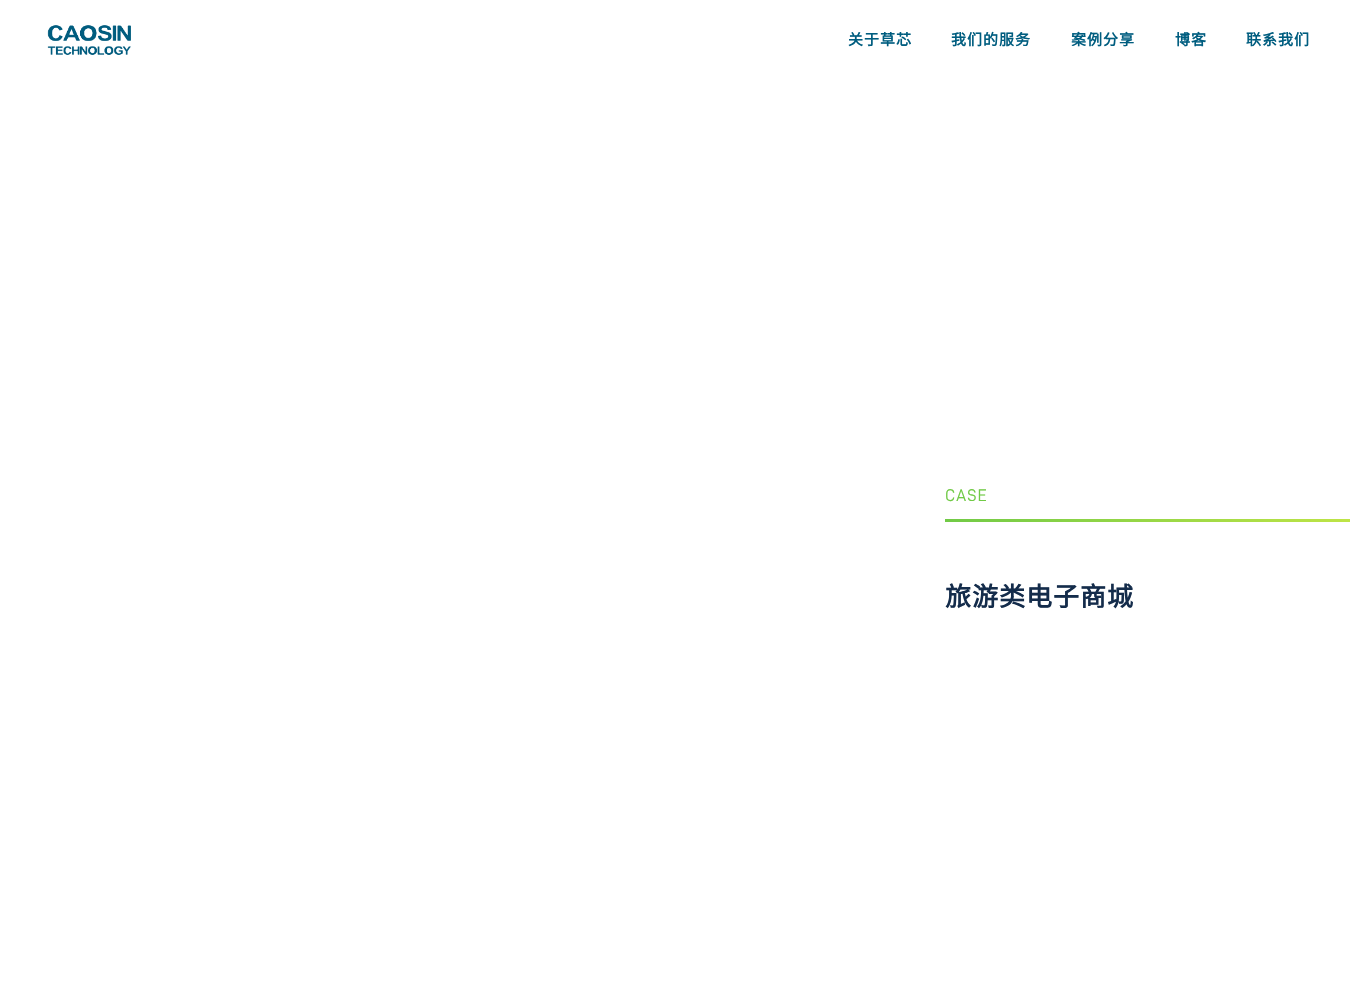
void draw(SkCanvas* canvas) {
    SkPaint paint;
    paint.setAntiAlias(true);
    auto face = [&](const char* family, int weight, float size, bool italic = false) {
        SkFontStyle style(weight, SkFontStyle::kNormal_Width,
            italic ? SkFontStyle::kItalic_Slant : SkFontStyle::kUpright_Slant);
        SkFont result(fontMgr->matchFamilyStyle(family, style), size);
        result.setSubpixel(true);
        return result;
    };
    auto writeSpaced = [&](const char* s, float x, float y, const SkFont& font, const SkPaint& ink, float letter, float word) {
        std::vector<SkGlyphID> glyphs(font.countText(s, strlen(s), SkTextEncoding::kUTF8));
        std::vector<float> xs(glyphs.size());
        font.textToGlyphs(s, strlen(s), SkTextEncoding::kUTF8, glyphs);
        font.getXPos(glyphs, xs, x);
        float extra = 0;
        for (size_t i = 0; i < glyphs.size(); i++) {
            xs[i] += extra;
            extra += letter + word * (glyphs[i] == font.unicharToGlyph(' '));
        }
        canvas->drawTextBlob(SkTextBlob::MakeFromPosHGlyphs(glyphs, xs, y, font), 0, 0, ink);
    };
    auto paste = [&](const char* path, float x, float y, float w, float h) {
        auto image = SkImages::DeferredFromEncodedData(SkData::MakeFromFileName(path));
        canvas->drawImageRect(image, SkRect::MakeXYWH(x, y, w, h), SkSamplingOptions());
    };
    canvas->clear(SK_ColorWHITE);
    paste("pic1.png", 47, 25, 84, 30);
    auto kFont1 = face("Noto Sans CJK HK", 700, 15);
    paint.setColor(SkColorSetRGB(0, 93, 127));
    writeSpaced("关于草芯", 848, 45, kFont1, paint, 1, 0);
    writeSpaced("我们的服务", 951, 45, kFont1, paint, 1, 0);
    writeSpaced("案例分享", 1071, 45, kFont1, paint, 1, 0);
    writeSpaced("博客", 1175, 45, kFont1, paint, 1, 0);
    writeSpaced("联系我们", 1246, 45, kFont1, paint, 1, 0);
    auto kFont2 = face("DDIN", 400, 17);
    paint.setColor(SkColorSetRGB(113, 202, 70));
    writeSpaced("CASE", 945, 501, kFont2, paint, 1, 0);
    {
        const SkColor colors[] = {SkColorSetRGB(113, 202, 70), SkColorSetRGB(190, 228, 70)};
        const float stops[] = {0, 1};
        const SkPoint ends[] = {{945, 521}, {1350, 521}};
        paint.setShader(SkGradientShader::MakeLinear(ends, colors, stops, 2, SkTileMode::kClamp));
        paint.setAlpha(255);
    }
    canvas->drawRect(SkRect::MakeXYWH(945, 519, 405, 3), paint);
    auto kFont3 = face("Noto Sans CJK HK", 700, 26);
    paint.setShader(nullptr);
    paint.setColor(SkColorSetRGB(20, 44, 75));
    writeSpaced("旅游类电子商城", 945, 606, kFont3, paint, 1, 0);
}
